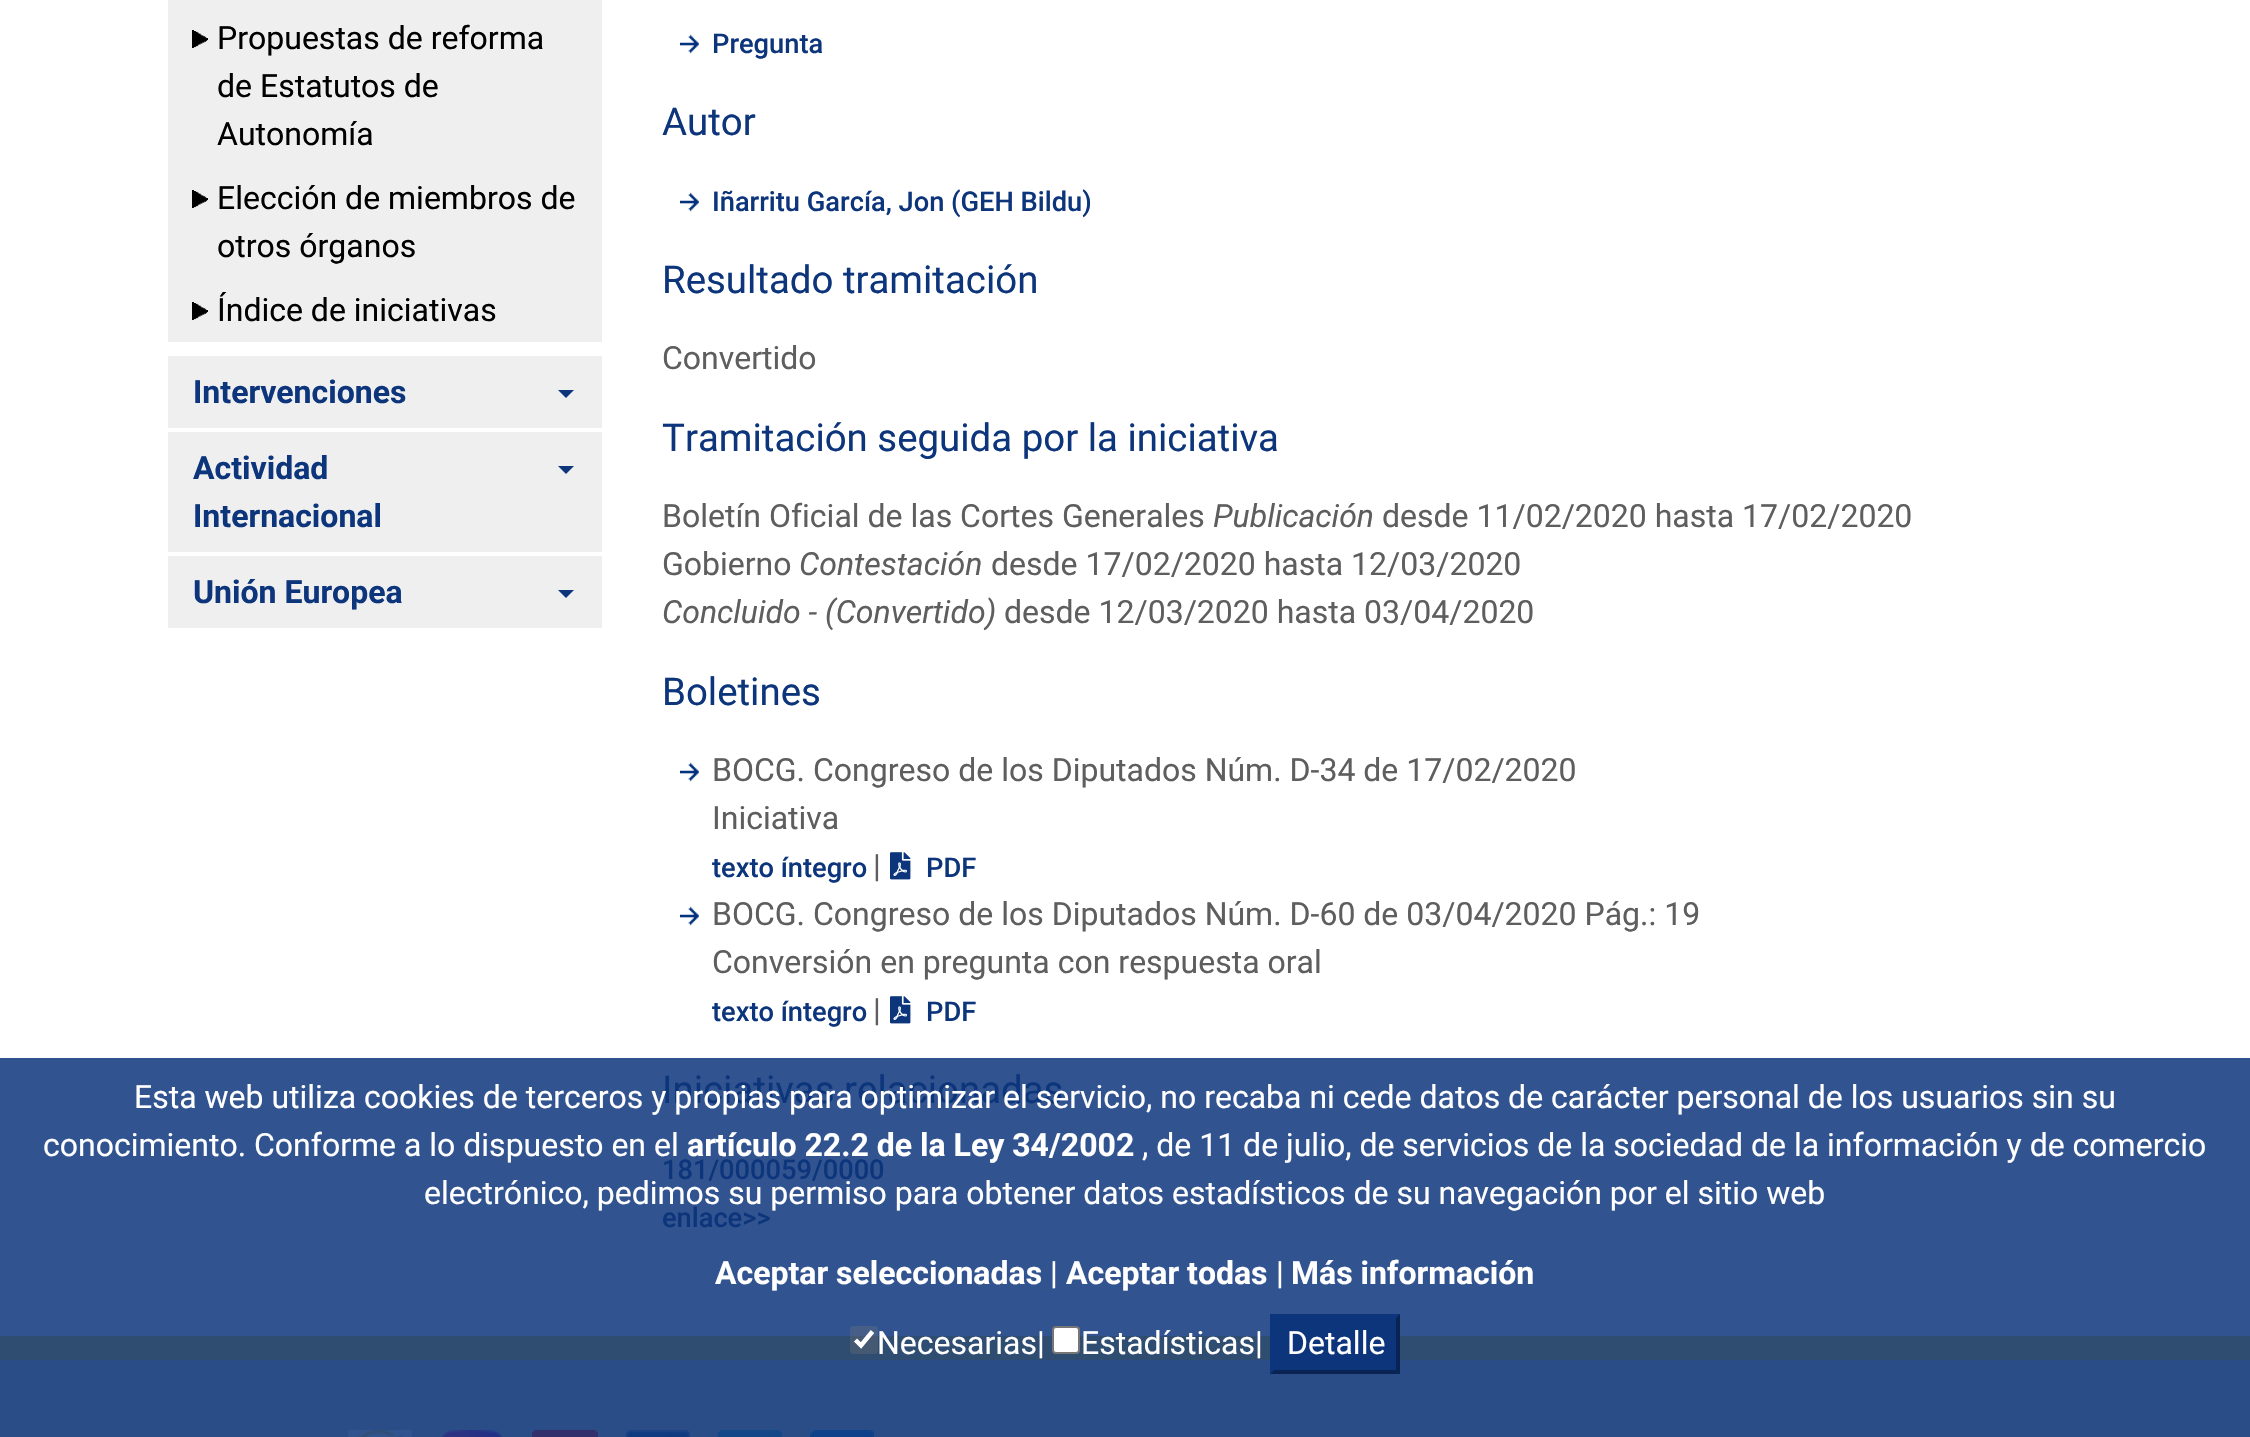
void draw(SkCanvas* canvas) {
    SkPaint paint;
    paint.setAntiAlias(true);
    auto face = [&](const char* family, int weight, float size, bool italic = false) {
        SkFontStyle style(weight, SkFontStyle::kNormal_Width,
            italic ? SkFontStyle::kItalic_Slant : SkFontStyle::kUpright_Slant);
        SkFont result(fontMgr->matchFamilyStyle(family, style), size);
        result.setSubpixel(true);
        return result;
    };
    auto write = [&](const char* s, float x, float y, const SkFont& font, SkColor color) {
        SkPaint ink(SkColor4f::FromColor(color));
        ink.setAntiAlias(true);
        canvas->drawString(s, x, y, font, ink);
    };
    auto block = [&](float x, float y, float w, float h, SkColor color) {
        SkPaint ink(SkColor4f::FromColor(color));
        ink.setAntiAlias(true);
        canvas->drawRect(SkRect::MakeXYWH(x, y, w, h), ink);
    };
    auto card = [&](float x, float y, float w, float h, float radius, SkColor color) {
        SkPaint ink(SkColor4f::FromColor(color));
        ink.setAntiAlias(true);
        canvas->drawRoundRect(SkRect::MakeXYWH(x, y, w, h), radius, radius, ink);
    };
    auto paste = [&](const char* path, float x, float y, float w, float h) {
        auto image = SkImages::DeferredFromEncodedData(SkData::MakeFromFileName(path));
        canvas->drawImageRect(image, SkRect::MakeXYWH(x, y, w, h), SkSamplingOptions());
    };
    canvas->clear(SK_ColorWHITE);
    block(0, 1058, 2250, 278, SkColorSetRGB(49, 83, 143));
    block(168, 0, 434, 342, SkColorSetRGB(239, 239, 239));
    paste("pic1.png", 192, 30, 16, 18);
    auto kFont1 = face("Roboto", 400, 32);
    write("Propuestas de reforma", 217, 49, kFont1, SK_ColorBLACK);
    write("de Estatutos de", 217, 97, kFont1, SK_ColorBLACK);
    write("Autonomía", 217, 145, kFont1, SK_ColorBLACK);
    paste("pic2.png", 192, 190, 16, 18);
    write("Elección de miembros de", 217, 209, kFont1, SK_ColorBLACK);
    write("otros órganos", 217, 257, kFont1, SK_ColorBLACK);
    paste("pic2.png", 192, 302, 16, 18);
    write("Índice de iniciativas", 217, 321, kFont1, SK_ColorBLACK);
    block(168, 356, 434, 72, SkColorSetRGB(239, 239, 239));
    auto kFont2 = face("Roboto", 700, 32);
    write("Intervenciones", 193, 403, kFont2, SkColorSetRGB(13, 53, 123));
    paint.setColor(SkColorSetRGB(13, 53, 123));
    canvas->drawPath(SkPathBuilder().moveTo(558, 390).lineTo(574, 390).lineTo(566, 398).close().detach(), paint);
    block(168, 432, 434, 120, SkColorSetRGB(239, 239, 239));
    write("Actividad", 193, 479, kFont2, SkColorSetRGB(13, 53, 123));
    write("Internacional", 193, 527, kFont2, SkColorSetRGB(13, 53, 123));
    canvas->drawPath(SkPathBuilder().moveTo(558, 466).lineTo(574, 466).lineTo(566, 474).close().detach(), paint);
    block(168, 556, 434, 72, SkColorSetRGB(239, 239, 239));
    write("Unión Europea", 193, 603, kFont2, SkColorSetRGB(13, 53, 123));
    canvas->drawPath(SkPathBuilder().moveTo(558, 590).lineTo(574, 590).lineTo(566, 598).close().detach(), paint);
    paste("pic3.png", 680, 34, 19, 20);
    auto kFont3 = face("Roboto", 500, 27.25f);
    write("Pregunta", 712, 53, kFont3, SkColorSetRGB(13, 53, 123));
    auto kFont4 = face("Roboto", 400, 38.4f);
    write("Autor", 662, 135, kFont4, SkColorSetRGB(13, 53, 123));
    paste("pic3.png", 680, 192, 19, 20);
    write("Iñarritu García, Jon (GEH Bildu)", 712, 211, kFont3, SkColorSetRGB(13, 53, 123));
    write("Resultado tramitación", 662, 293, kFont4, SkColorSetRGB(13, 53, 123));
    write("Convertido", 662, 369, kFont1, SkColorSetRGB(94, 94, 94));
    write("Tramitación seguida por la iniciativa", 662, 451, kFont4, SkColorSetRGB(13, 53, 123));
    write("Boletín Oficial de las Cortes Generales", 662, 527, kFont1, SkColorSetRGB(94, 94, 94));
    auto kFont5 = face("Roboto", 400, 32, true);
    write("Publicación", 1213, 527, kFont5, SkColorSetRGB(94, 94, 94));
    write("desde 11/02/2020 hasta 17/02/2020", 1382, 527, kFont1, SkColorSetRGB(94, 94, 94));
    write("Gobierno", 662, 575, kFont1, SkColorSetRGB(94, 94, 94));
    write("Contestación", 799, 575, kFont5, SkColorSetRGB(94, 94, 94));
    write("desde 17/02/2020 hasta 12/03/2020", 991, 575, kFont1, SkColorSetRGB(94, 94, 94));
    write("Concluido - (Convertido)", 662, 623, kFont5, SkColorSetRGB(94, 94, 94));
    write("desde 12/03/2020 hasta 03/04/2020", 1004, 623, kFont1, SkColorSetRGB(94, 94, 94));
    write("Boletines", 662, 705, kFont4, SkColorSetRGB(13, 53, 123));
    paste("pic3.png", 680, 762, 19, 20);
    write("BOCG. Congreso de los Diputados Núm. D-34 de 17/02/2020", 712, 781, kFont1, SkColorSetRGB(94, 94, 94));
    write("Iniciativa", 712, 829, kFont1, SkColorSetRGB(94, 94, 94));
    write("texto íntegro", 712, 877, kFont3, SkColorSetRGB(13, 53, 123));
    write("|", 873, 877, kFont1, SkColorSetRGB(94, 94, 94));
    paste("pic4.png", 890, 852, 21, 28);
    write("PDF", 926, 877, kFont3, SkColorSetRGB(13, 53, 123));
    paste("pic3.png", 680, 906, 19, 20);
    write("BOCG. Congreso de los Diputados Núm. D-60 de 03/04/2020 Pág.: 19", 712, 925, kFont1, SkColorSetRGB(94, 94, 94));
    write("Conversión en pregunta con respuesta oral", 712, 973, kFont1, SkColorSetRGB(94, 94, 94));
    write("texto íntegro", 712, 1021, kFont3, SkColorSetRGB(13, 53, 123));
    write("|", 873, 1021, kFont1, SkColorSetRGB(94, 94, 94));
    paste("pic4.png", 890, 996, 21, 28);
    write("PDF", 926, 1021, kFont3, SkColorSetRGB(13, 53, 123));
    write("Iniciativas relacionadas", 662, 1103, kFont4, SkColorSetRGB(13, 53, 123));
    write("181/000059/0000", 662, 1179, kFont3, SkColorSetRGB(13, 53, 123));
    write("enlace>>", 662, 1227, kFont3, SkColorSetRGB(13, 53, 123));
    block(0, 1336, 2250, 24, SkColorSetRGB(47, 76, 113));
    block(0, 1360, 2250, 77, SkColorSetRGB(42, 76, 135));
    paste("pic5.png", 348, 1430, 64, 7);
    paste("pic6.png", 441, 1430, 62, 7);
    paste("pic7.png", 532, 1430, 66, 7);
    paste("pic8.png", 626, 1430, 64, 7);
    paste("pic9.png", 718, 1430, 64, 7);
    paste("pic10.png", 810, 1430, 64, 7);
    write("Esta web utiliza cookies de terceros y propias para optimizar el servicio, no recaba ni cede datos de carácter personal de los usuarios sin su", 134, 1108, kFont1, SK_ColorWHITE);
    write("conocimiento. Conforme a lo dispuesto en el", 43, 1156, kFont1, SK_ColorWHITE);
    write("artículo 22.2 de la Ley 34/2002", 687, 1156, kFont2, SK_ColorWHITE);
    write(", de 11 de julio, de servicios de la sociedad de la información y de comercio", 1142, 1156, kFont1, SK_ColorWHITE);
    write("electrónico, pedimos su permiso para obtener datos estadísticos de su navegación por el sitio web", 424, 1204, kFont1, SK_ColorWHITE);
    write("Aceptar seleccionadas", 715, 1284, kFont2, SK_ColorWHITE);
    write("|", 1050, 1284, kFont1, SK_ColorWHITE);
    write("Aceptar todas", 1066, 1284, kFont2, SK_ColorWHITE);
    write("|", 1276, 1284, kFont1, SK_ColorWHITE);
    write("Más información", 1291, 1284, kFont2, SK_ColorWHITE);
    card(850, 1326, 28, 28, 4, SkColorSetARGB(77, 118, 118, 118));
    paint.setStyle(SkPaint::kStroke_Style);
    paint.setStrokeWidth(4.5f);
    paint.setColor(SK_ColorWHITE);
    canvas->drawPath(SkPathBuilder().moveTo(855.5f, 1340).lineTo(861, 1345.5f).lineTo(872.5f, 1331.5f).detach(), paint);
    write("Necesarias|", 877, 1354, kFont1, SK_ColorWHITE);
    paint.setStyle(SkPaint::kFill_Style);
    canvas->drawRoundRect(SkRect::MakeXYWH(1053, 1327, 26, 26), 3, 3, paint);
    paint.setStyle(SkPaint::kStroke_Style);
    paint.setStrokeWidth(2);
    paint.setColor(SkColorSetRGB(118, 118, 118));
    canvas->drawRoundRect(SkRect::MakeXYWH(1053, 1327, 26, 26), 3, 3, paint);
    write("Estadísticas|", 1081, 1354, kFont1, SK_ColorWHITE);
    block(1270, 1314, 130, 60, SkColorSetRGB(13, 53, 123));
    paint.setStyle(SkPaint::kFill_Style);
    paint.setColor(SkColorSetRGB(9, 35, 82));
    canvas->drawPath(SkPathBuilder().moveTo(1400, 1314).lineTo(1400, 1374).lineTo(1396, 1370).lineTo(1396, 1318).close().detach(), paint);
    canvas->drawPath(SkPathBuilder().moveTo(1400, 1374).lineTo(1270, 1374).lineTo(1274, 1370).lineTo(1396, 1370).close().detach(), paint);
    paint.setColor(SkColorSetRGB(13, 53, 123));
    canvas->drawPath(SkPathBuilder().moveTo(1270, 1374).lineTo(1270, 1314).lineTo(1274, 1318).lineTo(1274, 1370).close().detach(), paint);
    write("Detalle", 1287, 1354, kFont1, SK_ColorWHITE);
}
